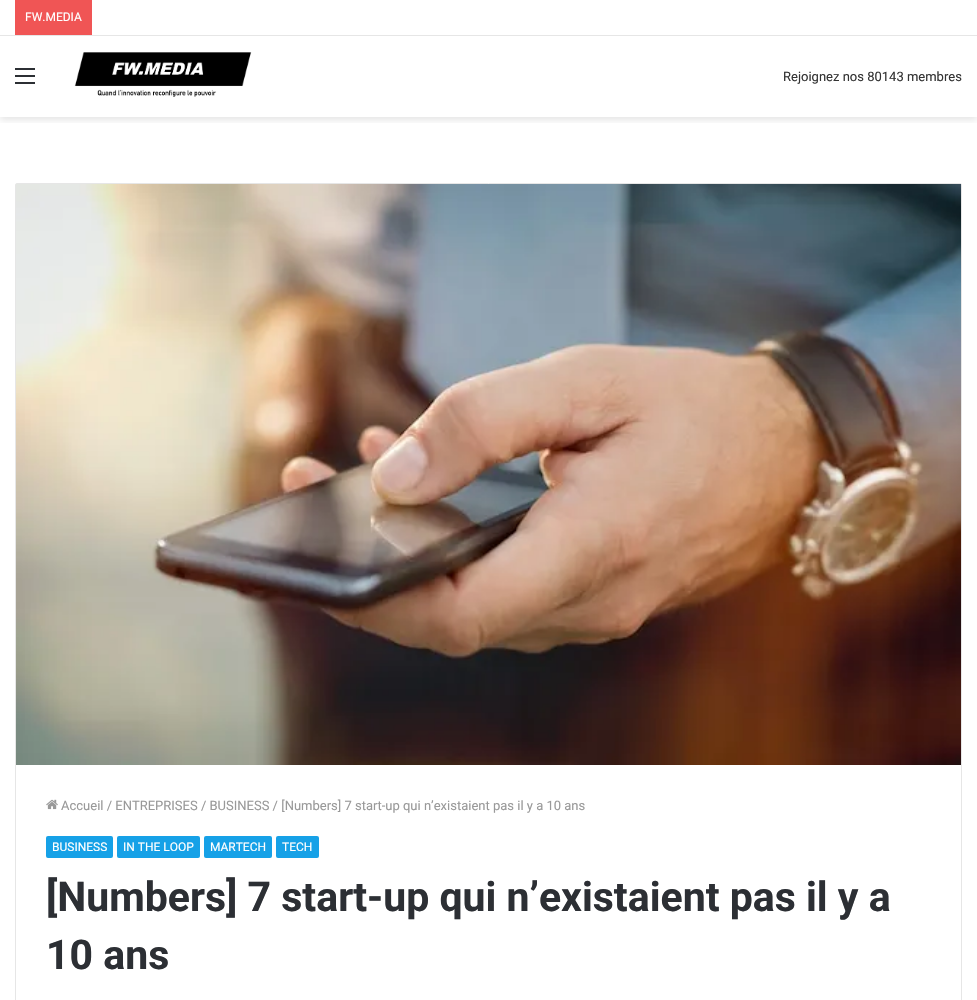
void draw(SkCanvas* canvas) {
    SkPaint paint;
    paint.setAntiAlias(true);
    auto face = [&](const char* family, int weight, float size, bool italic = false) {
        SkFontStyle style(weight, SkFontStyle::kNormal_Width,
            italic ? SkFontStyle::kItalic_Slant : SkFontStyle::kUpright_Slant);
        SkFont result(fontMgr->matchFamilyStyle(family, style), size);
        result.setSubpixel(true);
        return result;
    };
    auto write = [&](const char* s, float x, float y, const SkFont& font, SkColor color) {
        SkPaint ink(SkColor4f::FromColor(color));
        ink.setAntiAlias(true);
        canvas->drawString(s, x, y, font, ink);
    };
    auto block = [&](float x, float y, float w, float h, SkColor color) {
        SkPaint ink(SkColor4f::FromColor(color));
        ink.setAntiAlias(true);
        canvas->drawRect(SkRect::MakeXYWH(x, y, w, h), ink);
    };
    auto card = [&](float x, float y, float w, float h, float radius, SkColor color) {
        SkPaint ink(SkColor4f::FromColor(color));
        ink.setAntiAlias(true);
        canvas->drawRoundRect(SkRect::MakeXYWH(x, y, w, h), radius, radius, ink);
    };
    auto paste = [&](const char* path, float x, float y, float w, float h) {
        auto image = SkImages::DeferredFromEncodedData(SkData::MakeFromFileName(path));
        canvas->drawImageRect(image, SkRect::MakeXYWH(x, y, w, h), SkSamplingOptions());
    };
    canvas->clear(SK_ColorWHITE);
    canvas->save();
    canvas->clipRect(SkRect::MakeXYWH(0, 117, 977, 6));
    paint.setColor(SkColorSetARGB(26, 0, 0, 0));
    paint.setMaskFilter(SkMaskFilter::MakeBlur(kNormal_SkBlurStyle, 3.5f));
    canvas->drawRect(SkRect::MakeXYWH(0, 39, 977, 81), paint);
    paint.setMaskFilter(nullptr);
    canvas->restore();
    block(0, 35, 977, 1, SkColorSetRGB(230, 230, 230));
    block(15, 0, 77, 35, SkColorSetRGB(240, 85, 85));
    auto kFont1 = face("Roboto", 400, 12);
    write("FW.MEDIA", 25, 21, kFont1, SK_ColorWHITE);
    block(15, 75, 20, 2, SkColorSetRGB(44, 47, 52));
    block(15, 68, 20, 2, SkColorSetRGB(44, 47, 52));
    block(15, 82, 20, 2, SkColorSetRGB(44, 47, 52));
    paste("pic1.png", 74, 52, 178, 45);
    auto kFont2 = face("Roboto", 400, 13);
    write("Rejoignez nos 80143 membres", 783, 81, kFont2, SkColorSetRGB(51, 51, 51));
    paint.setStyle(SkPaint::kStroke_Style);
    paint.setStrokeWidth(1);
    paint.setColor(SkColorSetRGB(230, 230, 230));
    canvas->drawRoundRect(SkRect::MakeXYWH(15.5f, 183.5f, 946, 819), 1.5f, 1.5f, paint);
    paste("pic2.png", 16, 184, 945, 581);
    paste("pic3.png", 46, 799, 12, 11);
    write("Accueil / ENTREPRISES / BUSINESS / [Numbers] 7 start-up qui n’existaient pas il y a 10 ans", 61, 810, kFont2, SkColorSetRGB(153, 153, 153));
    card(46, 836, 67, 22, 2, SkColorSetRGB(22, 161, 231));
    write("BUSINESS", 52, 851, kFont1, SK_ColorWHITE);
    card(117, 836, 83, 22, 2, SkColorSetRGB(22, 161, 231));
    write("IN THE LOOP", 123, 851, kFont1, SK_ColorWHITE);
    card(204, 836, 68, 22, 2, SkColorSetRGB(22, 161, 231));
    write("MARTECH", 210, 851, kFont1, SK_ColorWHITE);
    card(276, 836, 43, 22, 2, SkColorSetRGB(22, 161, 231));
    write("TECH", 282, 851, kFont1, SK_ColorWHITE);
    auto kFont3 = face("Roboto", 700, 41);
    write("[Numbers] 7 start-up qui n’existaient pas il y a", 46, 911, kFont3, SkColorSetRGB(44, 47, 52));
    write("10 ans", 46, 969, kFont3, SkColorSetRGB(44, 47, 52));
}
